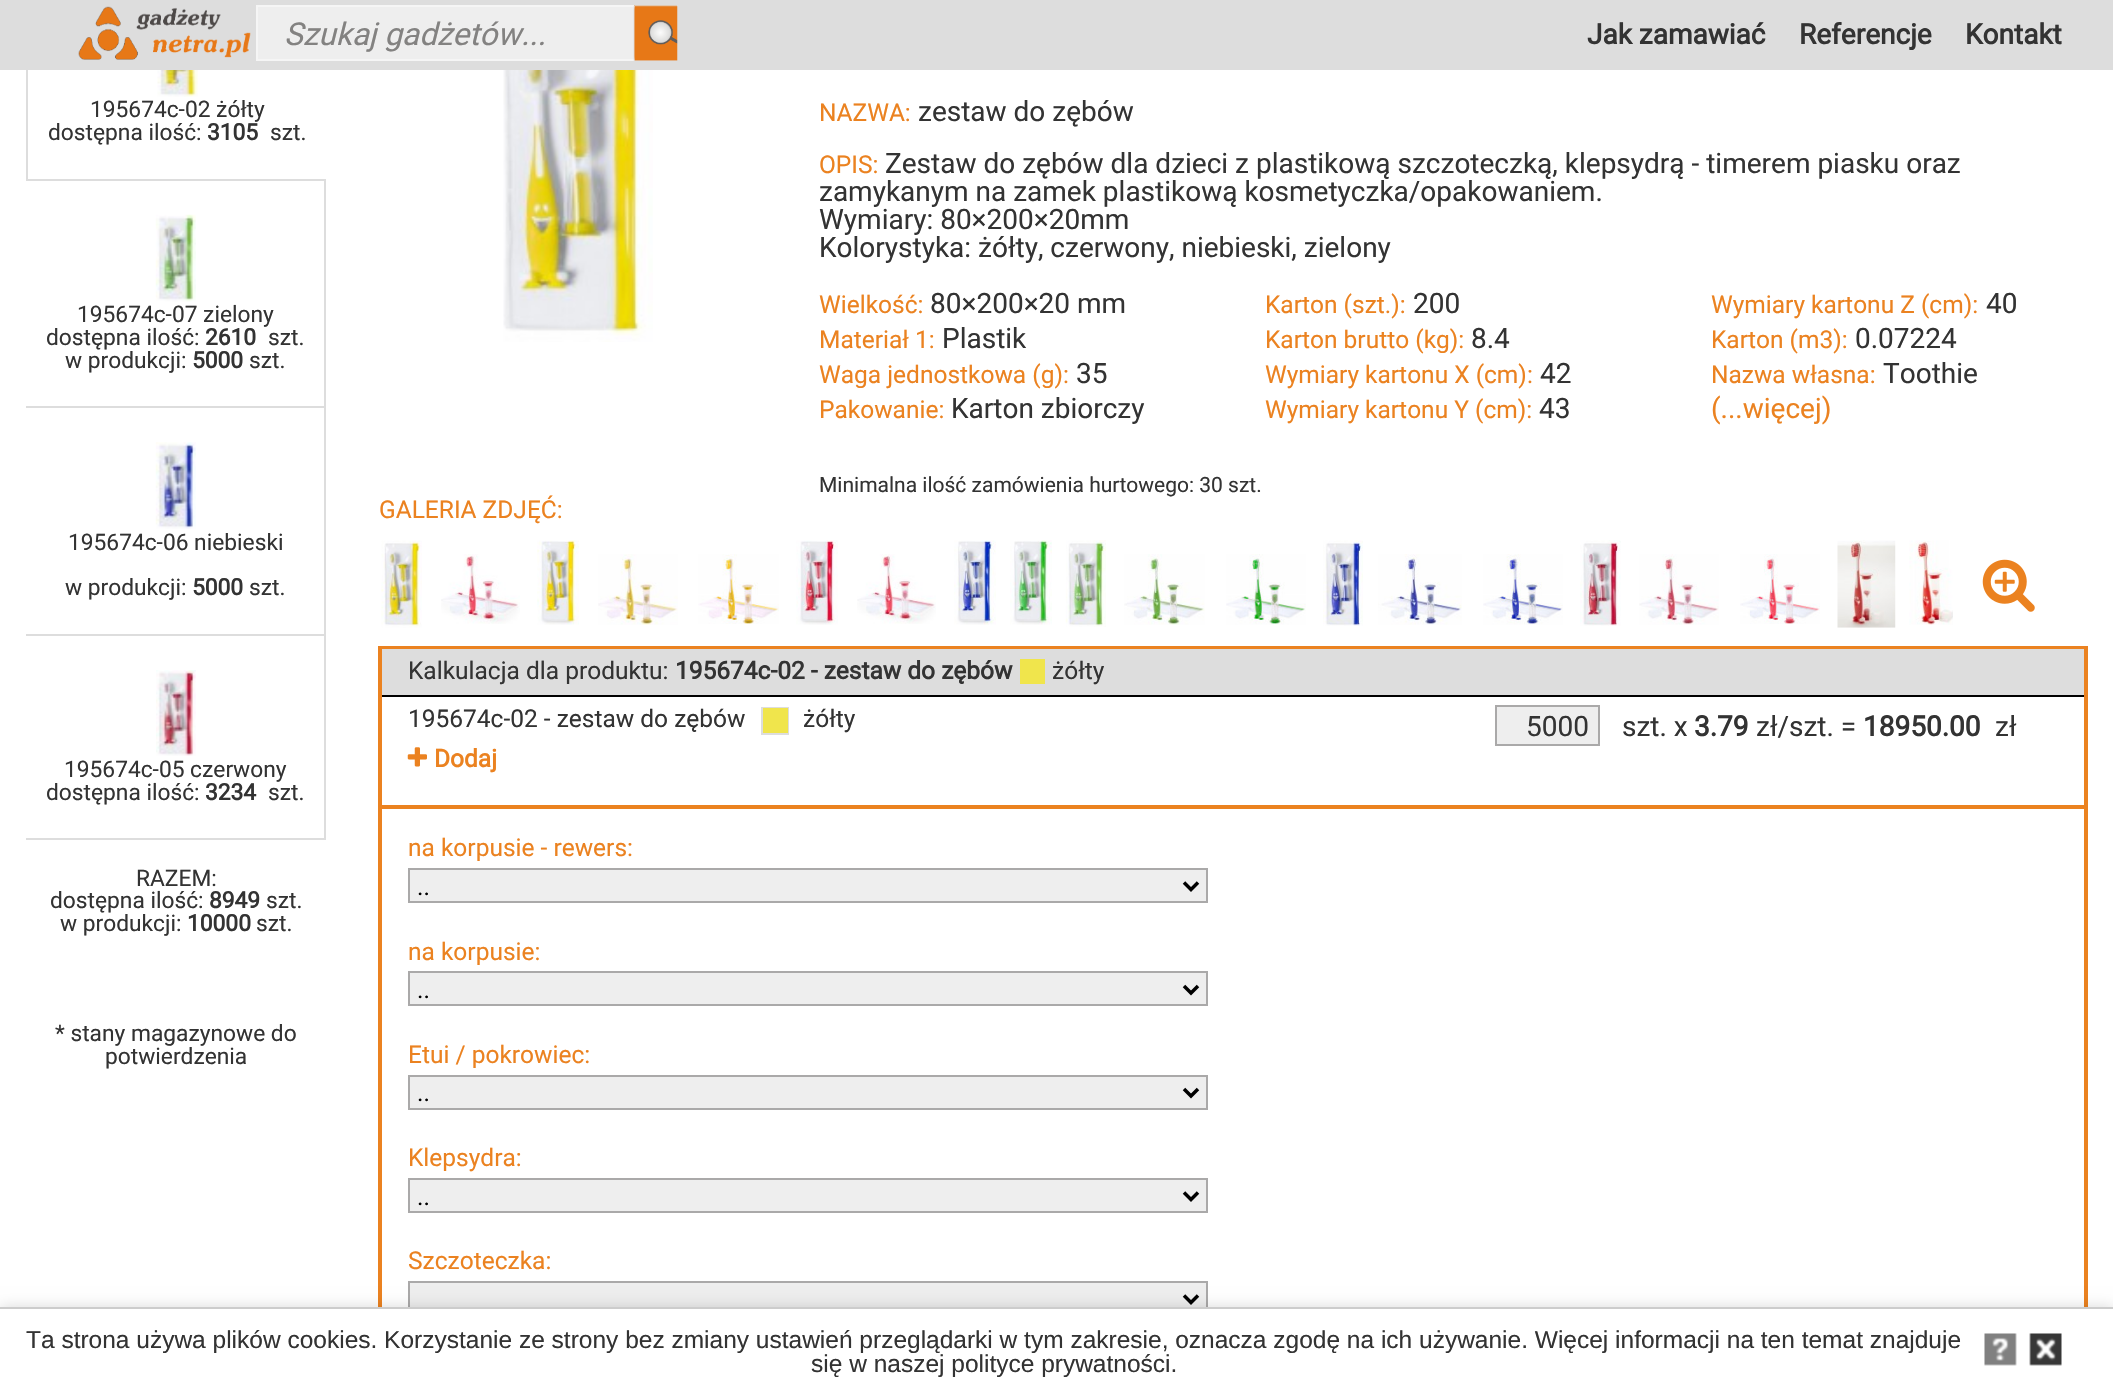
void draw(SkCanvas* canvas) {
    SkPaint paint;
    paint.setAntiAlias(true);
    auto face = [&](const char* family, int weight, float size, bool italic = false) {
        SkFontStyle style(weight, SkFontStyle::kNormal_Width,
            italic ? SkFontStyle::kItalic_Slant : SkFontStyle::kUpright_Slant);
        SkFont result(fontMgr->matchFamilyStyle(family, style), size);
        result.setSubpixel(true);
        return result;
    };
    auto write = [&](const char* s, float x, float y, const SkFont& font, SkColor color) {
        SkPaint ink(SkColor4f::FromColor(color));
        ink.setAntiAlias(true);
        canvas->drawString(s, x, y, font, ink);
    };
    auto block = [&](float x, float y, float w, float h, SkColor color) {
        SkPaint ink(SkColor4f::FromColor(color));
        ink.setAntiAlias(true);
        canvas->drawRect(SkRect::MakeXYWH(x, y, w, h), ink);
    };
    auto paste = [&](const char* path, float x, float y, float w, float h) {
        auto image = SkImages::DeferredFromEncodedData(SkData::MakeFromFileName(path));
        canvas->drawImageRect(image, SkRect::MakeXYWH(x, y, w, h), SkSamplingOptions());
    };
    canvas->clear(SK_ColorWHITE);
    block(0, 0, 2113, 70, SkColorSetRGB(221, 221, 221));
    paste("pic1.png", 78, 6, 173, 54);
    block(258, 7, 376, 52, SkColorSetRGB(238, 238, 238));
    paint.setStyle(SkPaint::kStroke_Style);
    paint.setStrokeWidth(2);
    paint.setColor(SkColorSetRGB(245, 245, 245));
    canvas->drawRect(SkRect::MakeXYWH(257, 6, 386, 54), paint);
    auto kFont1 = face("Roboto", 400, 31.5f, true);
    write("Szukaj gadżetów...", 284, 45, kFont1, SkColorSetRGB(131, 130, 129));
    block(634, 5, 43, 56, SkColorSetRGB(235, 130, 32));
    paste("pic2.png", 633, 5, 45, 56);
    auto kFont2 = face("Roboto", 700, 28);
    write("Jak zamawiać", 1587, 44, kFont2, SkColorSetRGB(51, 51, 51));
    write("Referencje", 1799, 44, kFont2, SkColorSetRGB(51, 51, 51));
    write("Kontakt", 1965, 44, kFont2, SkColorSetRGB(51, 51, 51));
    block(26, 179, 300, 2, SkColorSetRGB(221, 221, 221));
    block(26, 70, 2, 110, SkColorSetRGB(221, 221, 221));
    paste("pic3.png", 157, 70, 41, 27);
    auto kFont3 = face("Roboto", 400, 22.75f);
    write("195674c-02 żółty", 90, 117, kFont3, SkColorSetRGB(51, 51, 51));
    write("dostępna ilość:", 48, 140, kFont3, SkColorSetRGB(51, 51, 51));
    auto kFont4 = face("Roboto", 700, 22.75f);
    write("3105", 207, 140, kFont4, SkColorSetRGB(51, 51, 51));
    write("szt.", 270, 140, kFont3, SkColorSetRGB(51, 51, 51));
    block(324, 180, 2, 455, SkColorSetRGB(221, 221, 221));
    block(26, 406, 300, 2, SkColorSetRGB(221, 221, 221));
    paste("pic4.png", 155, 214, 41, 88);
    write("195674c-07 zielony", 77, 322, kFont3, SkColorSetRGB(51, 51, 51));
    write("dostępna ilość:", 46, 345, kFont3, SkColorSetRGB(51, 51, 51));
    write("2610", 205, 345, kFont4, SkColorSetRGB(51, 51, 51));
    write("szt.", 268, 345, kFont3, SkColorSetRGB(51, 51, 51));
    write("w produkcji:", 65, 368, kFont3, SkColorSetRGB(51, 51, 51));
    write("5000", 192, 368, kFont4, SkColorSetRGB(51, 51, 51));
    write("szt.", 249, 368, kFont3, SkColorSetRGB(51, 51, 51));
    block(26, 634, 300, 2, SkColorSetRGB(221, 221, 221));
    paste("pic5.png", 155, 442, 41, 87);
    write("195674c-06 niebieski", 68, 550, kFont3, SkColorSetRGB(51, 51, 51));
    write("w produkcji:", 65, 595, kFont3, SkColorSetRGB(51, 51, 51));
    write("5000", 192, 595, kFont4, SkColorSetRGB(51, 51, 51));
    write("szt.", 249, 595, kFont3, SkColorSetRGB(51, 51, 51));
    block(324, 635, 2, 205, SkColorSetRGB(221, 221, 221));
    block(26, 838, 300, 2, SkColorSetRGB(221, 221, 221));
    paste("pic6.png", 156, 670, 40, 86);
    write("195674c-05 czerwony", 64, 777, kFont3, SkColorSetRGB(51, 51, 51));
    write("dostępna ilość:", 46, 800, kFont3, SkColorSetRGB(51, 51, 51));
    write("3234", 205, 800, kFont4, SkColorSetRGB(51, 51, 51));
    write("szt.", 268, 800, kFont3, SkColorSetRGB(51, 51, 51));
    write("RAZEM:", 136, 886, kFont3, SkColorSetRGB(51, 51, 51));
    write("dostępna ilość:", 50, 908, kFont3, SkColorSetRGB(51, 51, 51));
    write("8949", 209, 908, kFont4, SkColorSetRGB(51, 51, 51));
    write("szt.", 266, 908, kFont3, SkColorSetRGB(51, 51, 51));
    write("w produkcji:", 60, 931, kFont3, SkColorSetRGB(51, 51, 51));
    write("10000", 187, 931, kFont4, SkColorSetRGB(51, 51, 51));
    write("szt.", 256, 931, kFont3, SkColorSetRGB(51, 51, 51));
    write("* stany magazynowe do", 55, 1041, kFont3, SkColorSetRGB(51, 51, 51));
    write("potwierdzenia", 105, 1064, kFont3, SkColorSetRGB(51, 51, 51));
    paste("pic7.png", 503, 70, 150, 272);
    auto kFont5 = face("Roboto", 400, 24.5f);
    write("NAZWA:", 819, 121, kFont5, SkColorSetRGB(235, 130, 32));
    auto kFont6 = face("Roboto", 400, 28);
    write("zestaw do zębów", 918, 121, kFont6, SkColorSetRGB(51, 51, 51));
    write("OPIS:", 819, 173, kFont5, SkColorSetRGB(235, 130, 32));
    write("Zestaw do zębów dla dzieci z plastikową szczoteczką, klepsydrą - timerem piasku oraz", 885, 173, kFont6, SkColorSetRGB(51, 51, 51));
    write("zamykanym na zamek plastikową kosmetyczka/opakowaniem.", 819, 201, kFont6, SkColorSetRGB(51, 51, 51));
    write("Wymiary: 80×200×20mm", 819, 229, kFont6, SkColorSetRGB(51, 51, 51));
    write("Kolorystyka: żółty, czerwony, niebieski, zielony", 819, 257, kFont6, SkColorSetRGB(51, 51, 51));
    write("Wielkość:", 819, 313, kFont5, SkColorSetRGB(235, 130, 32));
    write("80×200×20 mm", 930, 313, kFont6, SkColorSetRGB(51, 51, 51));
    write("Karton (szt.):", 1265, 313, kFont5, SkColorSetRGB(235, 130, 32));
    write("200", 1413, 313, kFont6, SkColorSetRGB(51, 51, 51));
    write("Wymiary kartonu Z (cm):", 1711, 313, kFont5, SkColorSetRGB(235, 130, 32));
    write("40", 1986, 313, kFont6, SkColorSetRGB(51, 51, 51));
    write("Materiał 1:", 819, 348, kFont5, SkColorSetRGB(235, 130, 32));
    write("Plastik", 942, 348, kFont6, SkColorSetRGB(51, 51, 51));
    write("Karton brutto (kg):", 1265, 348, kFont5, SkColorSetRGB(235, 130, 32));
    write("8.4", 1471, 348, kFont6, SkColorSetRGB(51, 51, 51));
    write("Karton (m3):", 1711, 348, kFont5, SkColorSetRGB(235, 130, 32));
    write("0.07224", 1855, 348, kFont6, SkColorSetRGB(51, 51, 51));
    write("Waga jednostkowa (g):", 819, 383, kFont5, SkColorSetRGB(235, 130, 32));
    write("35", 1076, 383, kFont6, SkColorSetRGB(51, 51, 51));
    write("Wymiary kartonu X (cm):", 1265, 383, kFont5, SkColorSetRGB(235, 130, 32));
    write("42", 1540, 383, kFont6, SkColorSetRGB(51, 51, 51));
    write("Nazwa własna:", 1711, 383, kFont5, SkColorSetRGB(235, 130, 32));
    write("Toothie", 1883, 383, kFont6, SkColorSetRGB(51, 51, 51));
    write("Pakowanie:", 819, 418, kFont5, SkColorSetRGB(235, 130, 32));
    write("Karton zbiorczy", 951, 418, kFont6, SkColorSetRGB(51, 51, 51));
    write("Wymiary kartonu Y (cm):", 1265, 418, kFont5, SkColorSetRGB(235, 130, 32));
    write("43", 1539, 418, kFont6, SkColorSetRGB(51, 51, 51));
    write("(...więcej)", 1711, 418, kFont6, SkColorSetRGB(235, 130, 32));
    auto kFont7 = face("Roboto", 400, 21);
    write("Minimalna ilość zamówienia hurtowego: 30 szt.", 819, 492, kFont7, SkColorSetRGB(51, 51, 51));
    write("GALERIA ZDJĘĆ:", 379, 518, kFont5, SkColorSetRGB(235, 130, 32));
    paste("pic8.png", 381, 540, 41, 88);
    paste("pic9.png", 441, 554, 79, 70);
    paste("pic10.png", 537, 540, 42, 85);
    paste("pic11.png", 598, 554, 80, 71);
    paste("pic12.png", 698, 554, 81, 70);
    paste("pic13.png", 796, 540, 42, 85);
    paste("pic14.png", 857, 554, 79, 70);
    paste("pic15.png", 954, 540, 42, 85);
    paste("pic16.png", 1010, 540, 42, 85);
    paste("pic17.png", 1065, 540, 41, 87);
    paste("pic18.png", 1124, 554, 81, 71);
    paste("pic19.png", 1226, 554, 80, 71);
    paste("pic20.png", 1323, 540, 40, 86);
    paste("pic21.png", 1378, 554, 84, 71);
    paste("pic22.png", 1483, 554, 80, 71);
    paste("pic23.png", 1580, 540, 41, 86);
    paste("pic24.png", 1639, 554, 80, 71);
    paste("pic25.png", 1740, 554, 80, 70);
    paste("pic26.png", 1837, 540, 59, 88);
    paste("pic27.png", 1909, 540, 44, 85);
    paste("pic28.png", 1982, 559, 53, 53);
    paint.setStrokeWidth(4);
    paint.setColor(SkColorSetRGB(235, 130, 32));
    canvas->drawRect(SkRect::MakeXYWH(380, 648, 1706, 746), paint);
    block(382, 649, 1702, 46, SkColorSetRGB(221, 221, 221));
    block(382, 695, 1702, 2, SK_ColorBLACK);
    write("Kalkulacja dla produktu:", 408, 679, kFont5, SkColorSetRGB(51, 51, 51));
    auto kFont8 = face("Roboto", 700, 24.5f);
    write("195674c-02 - zestaw do zębów", 675, 679, kFont8, SkColorSetRGB(51, 51, 51));
    block(1020, 659, 25, 25, SkColorSetRGB(240, 229, 76));
    write("żółty", 1052, 679, kFont5, SkColorSetRGB(51, 51, 51));
    write("195674c-02 - zestaw do zębów", 408, 727, kFont5, SkColorSetRGB(51, 51, 51));
    paint.setStrokeWidth(2);
    paint.setColor(SkColorSetRGB(221, 221, 221));
    canvas->drawRect(SkRect::MakeXYWH(762, 708, 26, 26), paint);
    block(763, 708, 25, 25, SkColorSetRGB(240, 229, 76));
    write("żółty", 803, 727, kFont5, SkColorSetRGB(51, 51, 51));
    paint.setStyle(SkPaint::kFill_Style);
    paint.setColor(SkColorSetRGB(238, 238, 238));
    canvas->drawRect(SkRect::MakeXYWH(1496, 706, 103, 39), paint);
    paint.setStyle(SkPaint::kStroke_Style);
    paint.setColor(SkColorSetRGB(170, 169, 169));
    canvas->drawRect(SkRect::MakeXYWH(1496, 706, 103, 39), paint);
    write("5000", 1526, 736, kFont6, SkColorSetRGB(51, 51, 51));
    write("szt. x", 1622, 736, kFont6, SkColorSetRGB(51, 51, 51));
    write("3.79", 1694, 736, kFont2, SkColorSetRGB(51, 51, 51));
    write("zł/szt. =", 1756, 736, kFont6, SkColorSetRGB(51, 51, 51));
    write("18950.00", 1863, 736, kFont2, SkColorSetRGB(51, 51, 51));
    write("zł", 1995, 736, kFont6, SkColorSetRGB(51, 51, 51));
    paste("pic29.png", 407, 747, 20, 20);
    write("Dodaj", 434, 767, kFont8, SkColorSetRGB(235, 130, 32));
    block(382, 805, 1702, 4, SkColorSetRGB(235, 130, 32));
    write("na korpusie - rewers:", 408, 856, kFont5, SkColorSetRGB(235, 130, 32));
    paint.setStyle(SkPaint::kFill_Style);
    paint.setColor(SkColorSetRGB(238, 238, 238));
    canvas->drawRect(SkRect::MakeXYWH(409, 869, 798, 33), paint);
    paint.setStyle(SkPaint::kStroke_Style);
    paint.setColor(SkColorSetRGB(170, 169, 169));
    canvas->drawRect(SkRect::MakeXYWH(409, 869, 798, 33), paint);
    paint.setStrokeWidth(3.5f);
    paint.setColor(SK_ColorBLACK);
    canvas->drawPath(SkPathBuilder().moveTo(1184, 882.5f).lineTo(1191, 889.5f).lineTo(1198, 882.5f).detach(), paint);
    write("..", 417, 895, kFont5, SK_ColorBLACK);
    write("na korpusie:", 408, 960, kFont5, SkColorSetRGB(235, 130, 32));
    paint.setStyle(SkPaint::kFill_Style);
    paint.setColor(SkColorSetRGB(238, 238, 238));
    canvas->drawRect(SkRect::MakeXYWH(409, 972, 798, 33), paint);
    paint.setStyle(SkPaint::kStroke_Style);
    paint.setStrokeWidth(2);
    paint.setColor(SkColorSetRGB(170, 169, 169));
    canvas->drawRect(SkRect::MakeXYWH(409, 972, 798, 33), paint);
    paint.setStrokeWidth(3.5f);
    paint.setColor(SK_ColorBLACK);
    canvas->drawPath(SkPathBuilder().moveTo(1184, 986).lineTo(1191, 993).lineTo(1198, 986).detach(), paint);
    write("..", 417, 998, kFont5, SK_ColorBLACK);
    write("Etui / pokrowiec:", 408, 1063, kFont5, SkColorSetRGB(235, 130, 32));
    paint.setStyle(SkPaint::kFill_Style);
    paint.setColor(SkColorSetRGB(238, 238, 238));
    canvas->drawRect(SkRect::MakeXYWH(409, 1076, 798, 33), paint);
    paint.setStyle(SkPaint::kStroke_Style);
    paint.setStrokeWidth(2);
    paint.setColor(SkColorSetRGB(170, 169, 169));
    canvas->drawRect(SkRect::MakeXYWH(409, 1076, 798, 33), paint);
    paint.setStrokeWidth(3.5f);
    paint.setColor(SK_ColorBLACK);
    canvas->drawPath(SkPathBuilder().moveTo(1184, 1089).lineTo(1191, 1096).lineTo(1198, 1089).detach(), paint);
    write("..", 417, 1101, kFont5, SK_ColorBLACK);
    write("Klepsydra:", 408, 1166, kFont5, SkColorSetRGB(235, 130, 32));
    paint.setStyle(SkPaint::kFill_Style);
    paint.setColor(SkColorSetRGB(238, 238, 238));
    canvas->drawRect(SkRect::MakeXYWH(409, 1179, 798, 33), paint);
    paint.setStyle(SkPaint::kStroke_Style);
    paint.setStrokeWidth(2);
    paint.setColor(SkColorSetRGB(170, 169, 169));
    canvas->drawRect(SkRect::MakeXYWH(409, 1179, 798, 33), paint);
    paint.setStrokeWidth(3.5f);
    paint.setColor(SK_ColorBLACK);
    canvas->drawPath(SkPathBuilder().moveTo(1184, 1192.5f).lineTo(1191, 1199.5f).lineTo(1198, 1192.5f).detach(), paint);
    write("..", 417, 1205, kFont5, SK_ColorBLACK);
    write("Szczoteczka:", 408, 1269, kFont5, SkColorSetRGB(235, 130, 32));
    block(410, 1283, 796, 24, SkColorSetRGB(238, 238, 238));
    paint.setStrokeWidth(2);
    paint.setColor(SkColorSetRGB(170, 169, 169));
    canvas->drawRect(SkRect::MakeXYWH(409, 1282, 798, 33), paint);
    paint.setStrokeWidth(3.5f);
    paint.setColor(SK_ColorBLACK);
    canvas->drawPath(SkPathBuilder().moveTo(1184, 1295.5f).lineTo(1191, 1302.5f).lineTo(1198, 1295.5f).detach(), paint);
    paint.setStyle(SkPaint::kFill_Style);
    paint.setColor(SkColorSetARGB(38, 0, 0, 0));
    paint.setMaskFilter(SkMaskFilter::MakeBlur(kNormal_SkBlurStyle, 7));
    canvas->drawRect(SkRect::MakeXYWH(0, 1307, 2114, 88), paint);
    paint.setMaskFilter(nullptr);
    block(0, 1309, 2113, 83, SK_ColorWHITE);
    block(0, 1307, 2113, 2, SkColorSetRGB(204, 204, 204));
    auto kFont9 = face("Liberation Sans", 400, 24.5f);
    write("Ta strona używa plików cookies. Korzystanie ze strony bez zmiany ustawień przeglądarki w tym zakresie, oznacza zgodę na ich używanie. Więcej informacji na ten temat znajduje", 26, 1348, kFont9, SkColorSetRGB(51, 51, 51));
    write("się w naszej polityce prywatności.", 811, 1372, kFont9, SkColorSetRGB(51, 51, 51));
    paste("pic30.png", 1984, 1333, 33, 33);
    paste("pic31.png", 2029, 1333, 33, 33);
}
